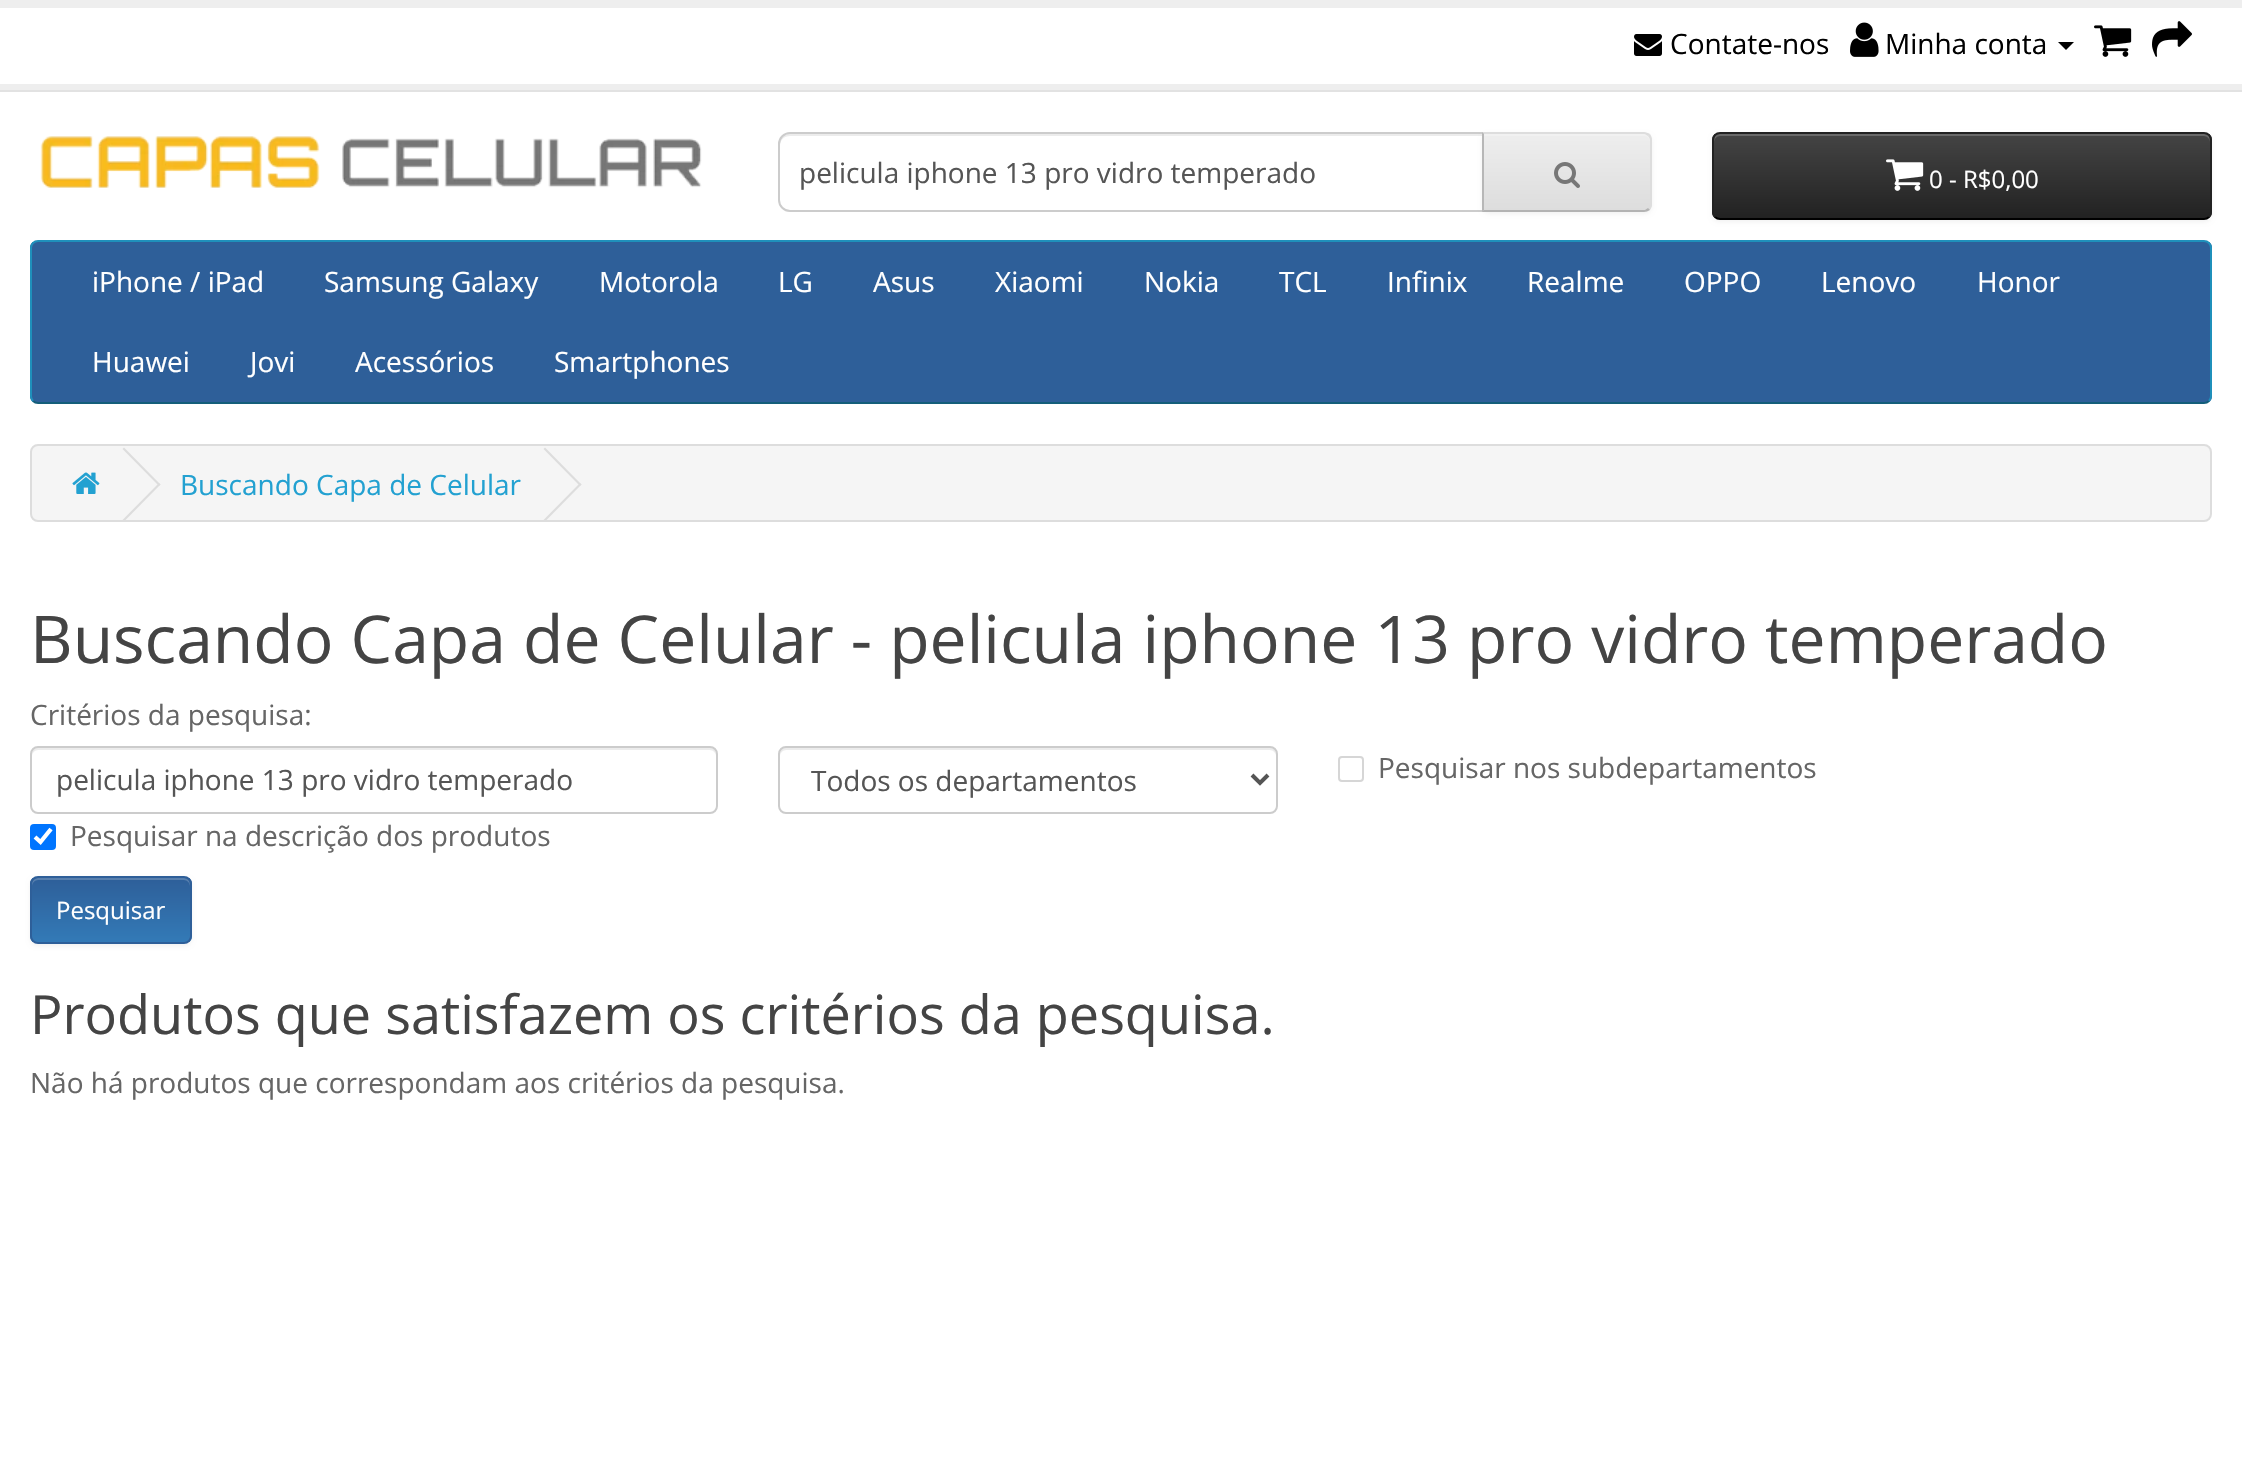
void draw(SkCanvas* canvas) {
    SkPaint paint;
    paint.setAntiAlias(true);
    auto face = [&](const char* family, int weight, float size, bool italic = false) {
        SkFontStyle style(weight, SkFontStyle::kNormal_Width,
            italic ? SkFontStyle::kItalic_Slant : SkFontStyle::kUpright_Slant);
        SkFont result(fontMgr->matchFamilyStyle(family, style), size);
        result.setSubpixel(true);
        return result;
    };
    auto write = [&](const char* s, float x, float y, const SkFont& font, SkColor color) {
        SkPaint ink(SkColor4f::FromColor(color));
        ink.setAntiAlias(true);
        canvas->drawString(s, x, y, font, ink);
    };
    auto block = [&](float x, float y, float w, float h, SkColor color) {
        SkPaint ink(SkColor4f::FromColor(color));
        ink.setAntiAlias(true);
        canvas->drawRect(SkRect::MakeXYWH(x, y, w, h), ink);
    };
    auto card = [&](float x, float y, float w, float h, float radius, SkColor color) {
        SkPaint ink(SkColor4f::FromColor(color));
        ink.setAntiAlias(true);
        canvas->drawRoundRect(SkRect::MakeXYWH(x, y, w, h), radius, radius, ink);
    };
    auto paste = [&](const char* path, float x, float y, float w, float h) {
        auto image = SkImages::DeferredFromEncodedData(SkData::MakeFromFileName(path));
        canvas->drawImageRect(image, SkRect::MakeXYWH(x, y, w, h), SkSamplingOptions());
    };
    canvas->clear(SK_ColorWHITE);
    block(0, 0, 2242, 90, SkColorSetRGB(238, 238, 238));
    block(0, 90, 2242, 2, SkColorSetRGB(226, 226, 226));
    block(0, 8, 2242, 76, SK_ColorWHITE);
    paste("pic1.png", 1634, 34, 28, 22);
    auto kFont1 = face("Open Sans", 400, 28);
    write("Contate-nos", 1670, 54, kFont1, SK_ColorBLACK);
    paste("pic2.png", 1850, 22, 29, 35);
    write("Minha conta", 1885, 54, kFont1, SK_ColorBLACK);
    paint.setColor(SK_ColorBLACK);
    canvas->drawPath(SkPathBuilder().moveTo(2058, 42).lineTo(2074, 42).lineTo(2066, 50).close().detach(), paint);
    paste("pic3.png", 2094, 25, 38, 32);
    paste("pic4.png", 2152, 21, 40, 36);
    paste("pic5.png", 40, 136, 662, 52);
    paint.setColor(SkColorSetRGB(236, 236, 236));
    canvas->drawPath(SkPathBuilder().moveTo(790, 136).lineTo(1482, 136).lineTo(1482, 134).lineTo(790, 134).cubicTo(784, 134, 780, 138, 780, 144).lineTo(780, 146).cubicTo(780, 140, 784, 136, 790, 136).close().detach(), paint);
    paint.setStyle(SkPaint::kStroke_Style);
    paint.setStrokeWidth(2);
    paint.setColor(SkColorSetRGB(204, 204, 204));
    canvas->drawPath(SkPathBuilder().moveTo(790, 133).lineTo(1483, 133).lineTo(1483, 211).lineTo(790, 211).cubicTo(784, 211, 779, 206, 779, 200).lineTo(779, 144).cubicTo(779, 138, 784, 133, 790, 133).close().detach(), paint);
    write("pelicula iphone 13 pro vidro temperado", 799, 183, kFont1, SkColorSetRGB(85, 85, 85));
    paint.setStyle(SkPaint::kFill_Style);
    paint.setColor(SkColorSetARGB(13, 0, 0, 0));
    paint.setMaskFilter(SkMaskFilter::MakeBlur(kNormal_SkBlurStyle, 2));
    canvas->drawRoundRect(SkRect::MakeXYWH(1482, 134, 170, 80), 8, 8, paint);
    paint.setMaskFilter(nullptr);
    canvas->save();
    canvas->clipPath(SkPathBuilder().moveTo(1482, 132).lineTo(1644, 132).cubicTo(1648.5f, 132, 1652, 135.5f, 1652, 140).lineTo(1652, 204).cubicTo(1652, 208.5f, 1648.5f, 212, 1644, 212).lineTo(1482, 212).close().detach(), true);
    {
        const SkColor colors[] = {SkColorSetRGB(238, 238, 238), SkColorSetRGB(221, 221, 221)};
        const float stops[] = {0, 1};
        const SkPoint ends[] = {{1567, 134}, {1567, 210}};
        paint.setShader(SkGradientShader::MakeLinear(ends, colors, stops, 2, SkTileMode::kClamp));
        paint.setAlpha(255);
    }
    canvas->drawRect(SkRect::MakeXYWH(1484, 134, 168, 76), paint);
    canvas->restore();
    paint.setShader(nullptr);
    paint.setColor(SkColorSetRGB(241, 241, 241));
    canvas->drawPath(SkPathBuilder().moveTo(1484, 136).lineTo(1644, 136).cubicTo(1647, 136, 1650, 139, 1650, 142).lineTo(1650, 140).cubicTo(1650, 137, 1647, 134, 1644, 134).lineTo(1484, 134).close().detach(), paint);
    paint.setColor(SkColorSetRGB(221, 221, 221));
    canvas->drawPath(SkPathBuilder().moveTo(1482, 132).lineTo(1484, 134).lineTo(1645, 134).lineTo(1648, 136).lineTo(1650, 134).cubicTo(1648, 133, 1646, 132, 1644, 132).close().detach(), paint);
    canvas->drawPath(SkPathBuilder().moveTo(1652, 204).lineTo(1652, 140).cubicTo(1652, 138, 1651, 136, 1650, 134).lineTo(1648, 136).cubicTo(1649, 137, 1650, 138, 1650, 140).lineTo(1650, 204).cubicTo(1650, 206, 1649, 207, 1648, 208).lineTo(1650, 210).cubicTo(1651, 208, 1652, 206, 1652, 204).close().detach(), paint);
    paint.setColor(SkColorSetRGB(179, 179, 179));
    canvas->drawPath(SkPathBuilder().moveTo(1644, 212).cubicTo(1646, 212, 1648, 211, 1650, 210).lineTo(1648, 208).lineTo(1645, 210).lineTo(1484, 210).lineTo(1482, 212).close().detach(), paint);
    paint.setColor(SkColorSetRGB(183, 183, 183));
    canvas->drawPath(SkPathBuilder().moveTo(1482, 132).lineTo(1482, 212).lineTo(1484, 210).lineTo(1484, 134).close().detach(), paint);
    paste("pic6.png", 1554, 162, 26, 26);
    paint.setColor(SkColorSetARGB(13, 0, 0, 0));
    paint.setMaskFilter(SkMaskFilter::MakeBlur(kNormal_SkBlurStyle, 2));
    canvas->drawRoundRect(SkRect::MakeXYWH(1712, 134, 500, 88), 8, 8, paint);
    paint.setMaskFilter(nullptr);
    canvas->save();
    canvas->clipPath(SkPathBuilder().moveTo(1720, 132).lineTo(2204, 132).cubicTo(2208.5f, 132, 2212, 135.5f, 2212, 140).lineTo(2212, 212).cubicTo(2212, 216.5f, 2208.5f, 220, 2204, 220).lineTo(1720, 220).cubicTo(1715.5f, 220, 1712, 216.5f, 1712, 212).lineTo(1712, 140).cubicTo(1712, 135.5f, 1715.5f, 132, 1720, 132).close().detach(), true);
    {
        const SkColor colors[] = {SkColorSetRGB(68, 68, 68), SkColorSetRGB(34, 34, 34)};
        const float stops[] = {0, 1};
        const SkPoint ends[] = {{1962, 134}, {1962, 218}};
        paint.setShader(SkGradientShader::MakeLinear(ends, colors, stops, 2, SkTileMode::kClamp));
        paint.setAlpha(255);
    }
    canvas->drawRect(SkRect::MakeXYWH(1712, 134, 500, 84), paint);
    canvas->restore();
    paint.setShader(nullptr);
    paint.setColor(SkColorSetRGB(105, 105, 105));
    canvas->drawPath(SkPathBuilder().moveTo(1720, 136).lineTo(2204, 136).cubicTo(2207, 136, 2210, 139, 2210, 142).cubicTo(2210, 138, 2209, 134, 2204, 134).lineTo(1720, 134).cubicTo(1715, 134, 1714, 138, 1714, 142).cubicTo(1714, 139, 1717, 136, 1720, 136).close().detach(), paint);
    paint.setStyle(SkPaint::kStroke_Style);
    paint.setColor(SK_ColorBLACK);
    canvas->drawPath(SkPathBuilder().moveTo(2209, 217).cubicTo(2207.5f, 218.5f, 2206, 219, 2204, 219).lineTo(1720, 219).cubicTo(1718, 219, 1716.5f, 218.5f, 1715, 217).detach(), paint);
    paint.setColor(SkColorSetRGB(34, 34, 34));
    canvas->drawPath(SkPathBuilder().moveTo(1715, 217).cubicTo(1713.5f, 215.5f, 1713, 214, 1713, 212).lineTo(1713, 140).cubicTo(1713, 138, 1713.5f, 136.5f, 1715, 135).cubicTo(1716.5f, 133.5f, 1718, 133, 1720, 133).lineTo(2204, 133).cubicTo(2206, 133, 2207.5f, 133.5f, 2209, 135).cubicTo(2210.5f, 136.5f, 2211, 138, 2211, 140).lineTo(2211, 212).cubicTo(2211, 214, 2210.5f, 215.5f, 2209, 217).detach(), paint);
    paste("pic7.png", 1886, 159, 38, 32);
    auto kFont2 = face("Open Sans", 400, 24);
    write("0 - R$0,00", 1929, 188, kFont2, SK_ColorWHITE);
    canvas->save();
    canvas->clipPath(SkPathBuilder().moveTo(38, 240).lineTo(2204, 240).cubicTo(2208.5f, 240, 2212, 243.5f, 2212, 248).lineTo(2212, 396).cubicTo(2212, 400.5f, 2208.5f, 404, 2204, 404).lineTo(38, 404).cubicTo(33.5f, 404, 30, 400.5f, 30, 396).lineTo(30, 248).cubicTo(30, 243.5f, 33.5f, 240, 38, 240).close().detach(), true);
    block(30, 242, 2182, 160, SkColorSetRGB(46, 95, 153));
    canvas->restore();
    paint.setColor(SkColorSetRGB(20, 94, 122));
    canvas->drawPath(SkPathBuilder().moveTo(2209, 401).cubicTo(2207.5f, 402.5f, 2206, 403, 2204, 403).lineTo(38, 403).cubicTo(36, 403, 34.5f, 402.5f, 33, 401).detach(), paint);
    paint.setColor(SkColorSetRGB(31, 144, 187));
    canvas->drawPath(SkPathBuilder().moveTo(33, 401).cubicTo(31.5f, 399.5f, 31, 398, 31, 396).lineTo(31, 248).cubicTo(31, 246, 31.5f, 244.5f, 33, 243).cubicTo(34.5f, 241.5f, 36, 241, 38, 241).lineTo(2204, 241).cubicTo(2206, 241, 2207.5f, 241.5f, 2209, 243).cubicTo(2210.5f, 244.5f, 2211, 246, 2211, 248).lineTo(2211, 396).cubicTo(2211, 398, 2210.5f, 399.5f, 2209, 401).detach(), paint);
    write("iPhone / iPad", 92, 292, kFont1, SK_ColorWHITE);
    write("Samsung Galaxy", 324, 292, kFont1, SK_ColorWHITE);
    write("Motorola", 599, 292, kFont1, SK_ColorWHITE);
    write("LG", 778, 292, kFont1, SK_ColorWHITE);
    write("Asus", 873, 292, kFont1, SK_ColorWHITE);
    write("Xiaomi", 995, 292, kFont1, SK_ColorWHITE);
    write("Nokia", 1144, 292, kFont1, SK_ColorWHITE);
    write("TCL", 1279, 292, kFont1, SK_ColorWHITE);
    write("Infinix", 1387, 292, kFont1, SK_ColorWHITE);
    write("Realme", 1527, 292, kFont1, SK_ColorWHITE);
    write("OPPO", 1684, 292, kFont1, SK_ColorWHITE);
    write("Lenovo", 1821, 292, kFont1, SK_ColorWHITE);
    write("Honor", 1977, 292, kFont1, SK_ColorWHITE);
    write("Huawei", 92, 372, kFont1, SK_ColorWHITE);
    write("Jovi", 250, 372, kFont1, SK_ColorWHITE);
    write("Acessórios", 355, 372, kFont1, SK_ColorWHITE);
    write("Smartphones", 554, 372, kFont1, SK_ColorWHITE);
    paint.setStyle(SkPaint::kFill_Style);
    paint.setColor(SkColorSetRGB(245, 245, 245));
    canvas->drawRoundRect(SkRect::MakeXYWH(31, 445, 2180, 76), 7, 7, paint);
    paint.setStyle(SkPaint::kStroke_Style);
    paint.setColor(SkColorSetRGB(221, 221, 221));
    canvas->drawRoundRect(SkRect::MakeXYWH(31, 445, 2180, 76), 7, 7, paint);
    paste("pic8.png", 72, 472, 28, 22);
    paint.setStyle(SkPaint::kFill_Style);
    canvas->drawPath(SkPathBuilder().moveTo(122.5f, 449).lineTo(124, 447.5f).lineTo(160.5f, 484.5f).lineTo(159, 486).close().detach(), paint);
    canvas->drawPath(SkPathBuilder().moveTo(122.5f, 520).lineTo(159, 483).lineTo(160.5f, 484.5f).lineTo(125.5f, 520).close().detach(), paint);
    write("Buscando Capa de Celular", 180, 495, kFont1, SkColorSetRGB(35, 161, 209));
    canvas->drawPath(SkPathBuilder().moveTo(543.5f, 449).lineTo(545, 447.5f).lineTo(581.5f, 484.5f).lineTo(580, 486).close().detach(), paint);
    canvas->drawPath(SkPathBuilder().moveTo(543.5f, 520).lineTo(580, 483).lineTo(581.5f, 484.5f).lineTo(546.5f, 520).close().detach(), paint);
    auto kFont3 = face("Open Sans", 400, 66);
    write("Buscando Capa de Celular - pelicula iphone 13 pro vidro temperado", 30, 663, kFont3, SkColorSetRGB(68, 68, 68));
    write("Critérios da pesquisa:", 30, 725, kFont1, SkColorSetRGB(102, 102, 102));
    paint.setColor(SkColorSetRGB(236, 236, 236));
    canvas->drawPath(SkPathBuilder().moveTo(38, 750).lineTo(710, 750).cubicTo(713, 750, 716, 753, 716, 756).cubicTo(716, 752, 715, 748, 710, 748).lineTo(38, 748).cubicTo(33, 748, 32, 752, 32, 756).cubicTo(32, 753, 35, 750, 38, 750).close().detach(), paint);
    paint.setStyle(SkPaint::kStroke_Style);
    paint.setColor(SkColorSetRGB(204, 204, 204));
    canvas->drawRoundRect(SkRect::MakeXYWH(31, 747, 686, 66), 7, 7, paint);
    write("pelicula iphone 13 pro vidro temperado", 56, 790, kFont1, SkColorSetRGB(85, 85, 85));
    paint.setStyle(SkPaint::kFill_Style);
    paint.setColor(SkColorSetRGB(236, 236, 236));
    canvas->drawPath(SkPathBuilder().moveTo(786, 750).lineTo(1270, 750).cubicTo(1273, 750, 1276, 753, 1276, 756).cubicTo(1276, 752, 1275, 748, 1270, 748).lineTo(786, 748).cubicTo(781, 748, 780, 752, 780, 756).cubicTo(780, 753, 783, 750, 786, 750).close().detach(), paint);
    paint.setStyle(SkPaint::kStroke_Style);
    paint.setColor(SkColorSetRGB(204, 204, 204));
    canvas->drawRoundRect(SkRect::MakeXYWH(779, 747, 498, 66), 7, 7, paint);
    paint.setStrokeWidth(4);
    paint.setColor(SkColorSetRGB(85, 85, 85));
    canvas->drawPath(SkPathBuilder().moveTo(1252, 775).lineTo(1260, 783).lineTo(1268, 775).detach(), paint);
    write("Todos os departamentos", 811, 791, kFont1, SkColorSetRGB(85, 85, 85));
    paint.setStrokeWidth(2);
    paint.setColor(SkColorSetRGB(214, 214, 214));
    canvas->drawRoundRect(SkRect::MakeXYWH(1339, 757, 24, 24), 3, 3, paint);
    write("Pesquisar nos subdepartamentos", 1378, 778, kFont1, SkColorSetRGB(102, 102, 102));
    card(30, 824, 26, 26, 4, SkColorSetRGB(0, 117, 255));
    paint.setStrokeWidth(4.2f);
    paint.setColor(SK_ColorWHITE);
    canvas->drawPath(SkPathBuilder().moveTo(35, 837).lineTo(40.5f, 842).lineTo(51, 829).detach(), paint);
    write("Pesquisar na descrição dos produtos", 70, 846, kFont1, SkColorSetRGB(102, 102, 102));
    paint.setStyle(SkPaint::kFill_Style);
    paint.setColor(SkColorSetARGB(13, 0, 0, 0));
    paint.setMaskFilter(SkMaskFilter::MakeBlur(kNormal_SkBlurStyle, 2));
    canvas->drawRoundRect(SkRect::MakeXYWH(30, 878, 162, 68), 8, 8, paint);
    paint.setMaskFilter(nullptr);
    canvas->save();
    canvas->clipPath(SkPathBuilder().moveTo(38, 876).lineTo(184, 876).cubicTo(188.5f, 876, 192, 879.5f, 192, 884).lineTo(192, 936).cubicTo(192, 940.5f, 188.5f, 944, 184, 944).lineTo(38, 944).cubicTo(33.5f, 944, 30, 940.5f, 30, 936).lineTo(30, 884).cubicTo(30, 879.5f, 33.5f, 876, 38, 876).close().detach(), true);
    {
        const SkColor colors[] = {SkColorSetRGB(46, 95, 153), SkColorSetRGB(51, 122, 183)};
        const float stops[] = {0, 1};
        const SkPoint ends[] = {{111, 878}, {111, 942}};
        paint.setShader(SkGradientShader::MakeLinear(ends, colors, stops, 2, SkTileMode::kClamp));
        paint.setAlpha(255);
    }
    canvas->drawRect(SkRect::MakeXYWH(30, 878, 162, 64), paint);
    canvas->restore();
    paint.setShader(nullptr);
    paint.setColor(SkColorSetARGB(51, 255, 255, 255));
    canvas->drawPath(SkPathBuilder().moveTo(38, 880).lineTo(184, 880).cubicTo(187, 880, 190, 883, 190, 886).lineTo(190, 884).cubicTo(190, 881, 187, 878, 184, 878).lineTo(38, 878).cubicTo(35, 878, 32, 881, 32, 884).lineTo(32, 886).cubicTo(32, 883, 35, 880, 38, 880).close().detach(), paint);
    paint.setStyle(SkPaint::kStroke_Style);
    paint.setStrokeWidth(2);
    paint.setColor(SkColorSetRGB(46, 95, 153));
    canvas->drawRoundRect(SkRect::MakeXYWH(31, 877, 160, 66), 7, 7, paint);
    write("Pesquisar", 56, 919, kFont2, SK_ColorWHITE);
    auto kFont4 = face("Open Sans", 400, 54);
    write("Produtos que satisfazem os critérios da pesquisa.", 30, 1034, kFont4, SkColorSetRGB(68, 68, 68));
    write("Não há produtos que correspondam aos critérios da pesquisa.", 30, 1093, kFont1, SkColorSetRGB(102, 102, 102));
}
